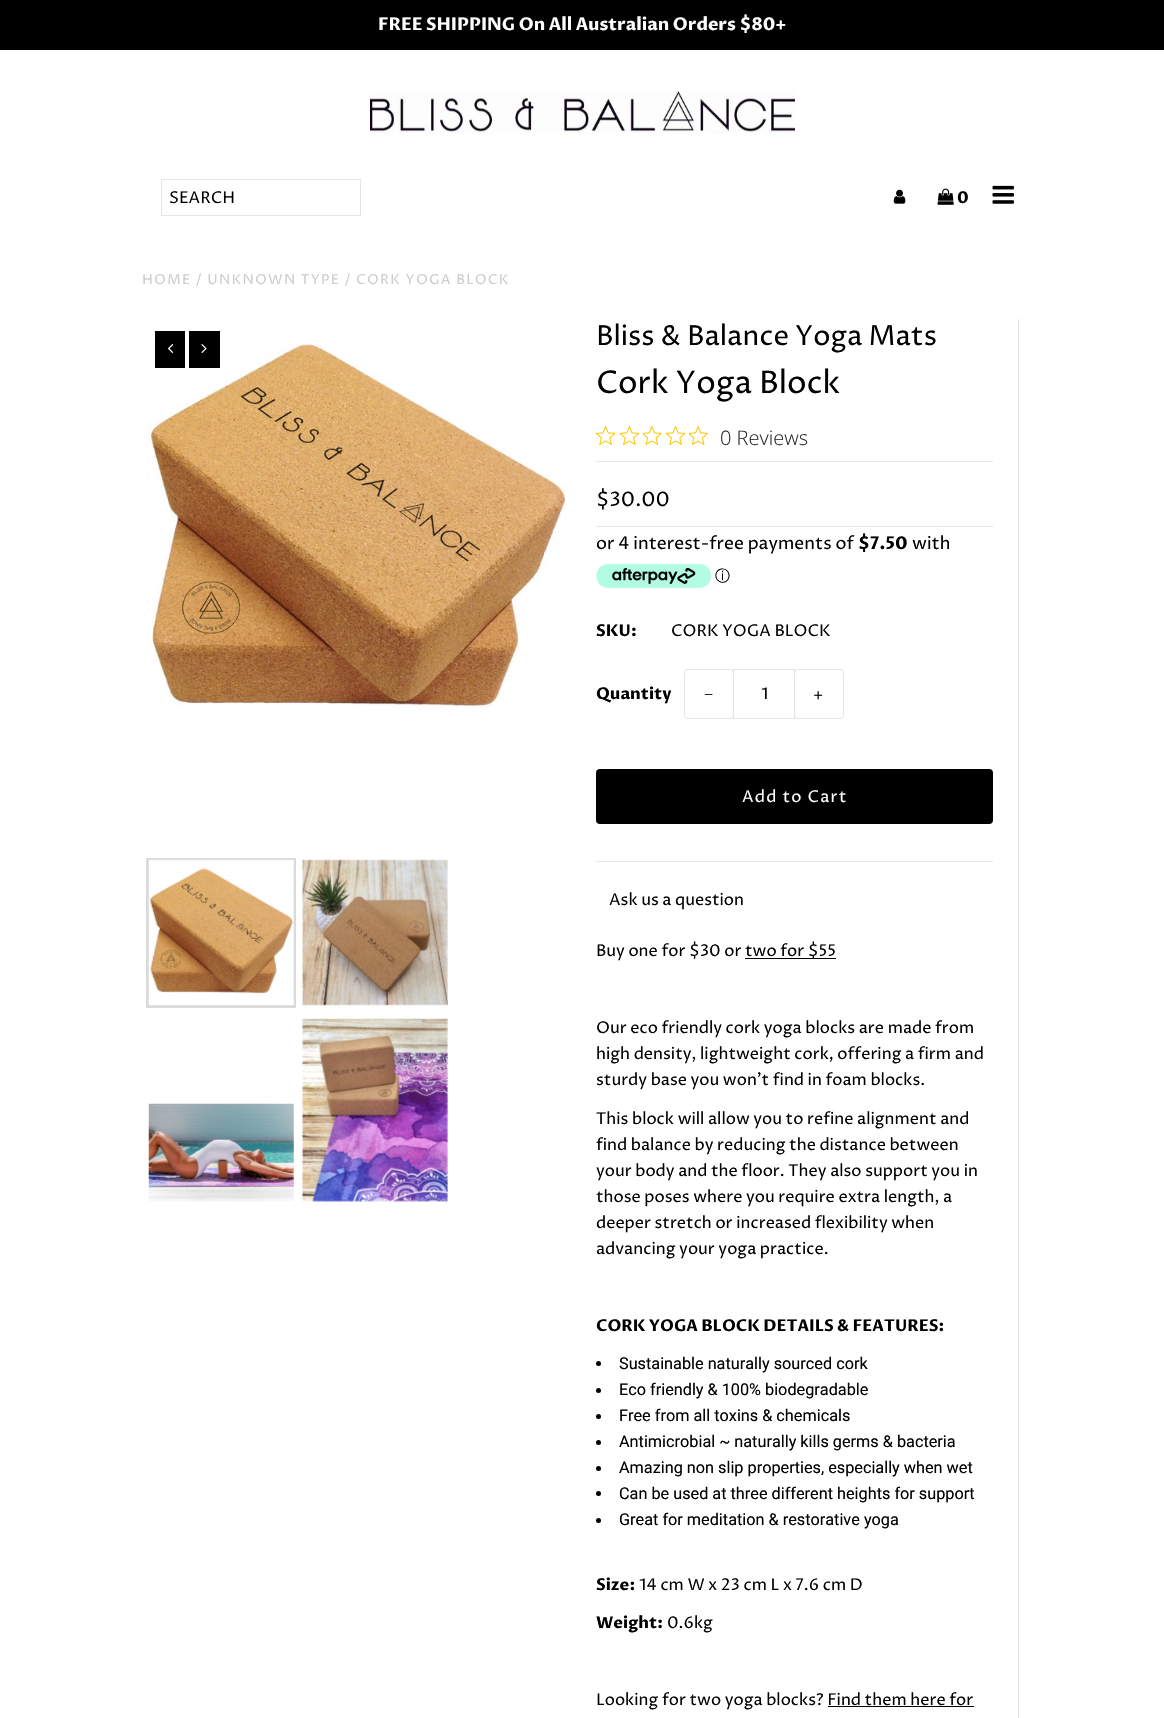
void draw(SkCanvas* canvas) {
    SkPaint paint;
    paint.setAntiAlias(true);
    auto face = [&](const char* family, int weight, float size, bool italic = false) {
        SkFontStyle style(weight, SkFontStyle::kNormal_Width,
            italic ? SkFontStyle::kItalic_Slant : SkFontStyle::kUpright_Slant);
        SkFont result(fontMgr->matchFamilyStyle(family, style), size);
        result.setSubpixel(true);
        return result;
    };
    auto write = [&](const char* s, float x, float y, const SkFont& font, SkColor color) {
        SkPaint ink(SkColor4f::FromColor(color));
        ink.setAntiAlias(true);
        canvas->drawString(s, x, y, font, ink);
    };
    auto writeSpaced = [&](const char* s, float x, float y, const SkFont& font, const SkPaint& ink, float letter, float word) {
        std::vector<SkGlyphID> glyphs(font.countText(s, strlen(s), SkTextEncoding::kUTF8));
        std::vector<float> xs(glyphs.size());
        font.textToGlyphs(s, strlen(s), SkTextEncoding::kUTF8, glyphs);
        font.getXPos(glyphs, xs, x);
        float extra = 0;
        for (size_t i = 0; i < glyphs.size(); i++) {
            xs[i] += extra;
            extra += letter + word * (glyphs[i] == font.unicharToGlyph(' '));
        }
        canvas->drawTextBlob(SkTextBlob::MakeFromPosHGlyphs(glyphs, xs, y, font), 0, 0, ink);
    };
    auto block = [&](float x, float y, float w, float h, SkColor color) {
        SkPaint ink(SkColor4f::FromColor(color));
        ink.setAntiAlias(true);
        canvas->drawRect(SkRect::MakeXYWH(x, y, w, h), ink);
    };
    auto card = [&](float x, float y, float w, float h, float radius, SkColor color) {
        SkPaint ink(SkColor4f::FromColor(color));
        ink.setAntiAlias(true);
        canvas->drawRoundRect(SkRect::MakeXYWH(x, y, w, h), radius, radius, ink);
    };
    auto paste = [&](const char* path, float x, float y, float w, float h) {
        auto image = SkImages::DeferredFromEncodedData(SkData::MakeFromFileName(path));
        canvas->drawImageRect(image, SkRect::MakeXYWH(x, y, w, h), SkSamplingOptions());
    };
    canvas->clear(SK_ColorWHITE);
    block(0, 0, 1164, 50, SK_ColorBLACK);
    auto kFont1 = face("Proza Libre", 700, 17.5f);
    write("FREE SHIPPING On All Australian Orders $80+", 378, 30, kFont1, SK_ColorWHITE);
    paste("pic1.png", 370, 91, 425, 43);
    paint.setStyle(SkPaint::kStroke_Style);
    paint.setStrokeWidth(1);
    paint.setColor(SkColorSetRGB(229, 229, 229));
    canvas->drawRect(SkRect::MakeXYWH(161.5f, 179.5f, 199, 36), paint);
    auto kFont2 = face("Proza Libre", 400, 16.25f);
    write("SEARCH", 169, 203, kFont2, SK_ColorBLACK);
    paste("pic2.png", 893, 189, 13, 15);
    paste("pic3.png", 937, 188, 17, 17);
    auto kFont3 = face("Proza Libre", 700, 16.25f);
    write("0", 957, 203, kFont3, SK_ColorBLACK);
    paste("pic4.png", 992, 185, 22, 19);
    auto kFont4 = face("Proza Libre", 400, 13.75f);
    paint.setStyle(SkPaint::kFill_Style);
    paint.setColor(SkColorSetRGB(204, 204, 204));
    writeSpaced("HOME / UNKNOWN TYPE / CORK YOGA BLOCK", 142, 284, kFont4, paint, 1.25f, 0);
    paste("pic7.png", 146, 343, 420, 365);
    block(155, 331, 30, 37, SK_ColorBLACK);
    paste("pic5.png", 168, 344, 6, 9);
    block(189, 331, 31, 37, SK_ColorBLACK);
    paste("pic6.png", 201, 344, 6, 9);
    paint.setStyle(SkPaint::kStroke_Style);
    paint.setStrokeWidth(3);
    paint.setColor(SkColorSetRGB(218, 218, 218));
    canvas->drawRect(SkRect::MakeXYWH(147.5f, 859.5f, 147, 147), paint);
    paste("pic8.png", 148, 859, 146, 147);
    paste("pic9.png", 301, 859, 147, 147);
    paste("pic10.png", 148, 1103, 146, 99);
    paste("pic11.png", 301, 1018, 147, 184);
    block(1018, 319, 1, 1399, SkColorSetRGB(229, 229, 229));
    auto kFont5 = face("Proza Libre", 400, 27.5f);
    write("Bliss & Balance Yoga Mats", 596, 345, kFont5, SK_ColorBLACK);
    auto kFont6 = face("Proza Libre", 400, 31.25f);
    write("Cork Yoga Block", 596, 393, kFont6, SK_ColorBLACK);
    paste("pic12.png", 596, 426, 19, 19);
    paste("pic13.png", 620, 426, 19, 19);
    paste("pic14.png", 643, 426, 18, 19);
    paste("pic12.png", 666, 426, 19, 19);
    paste("pic15.png", 689, 426, 19, 19);
    auto kFont7 = face("Open Sans", 300, 20);
    write("0 Reviews", 720, 445, kFont7, SkColorSetRGB(44, 44, 44));
    block(596, 461, 397, 1, SkColorSetRGB(229, 229, 229));
    block(596, 861, 397, 1, SkColorSetRGB(229, 229, 229));
    block(596, 526, 397, 1, SkColorSetRGB(229, 229, 229));
    auto kFont8 = face("Proza Libre", 400, 20);
    write("$30.00", 596, 506, kFont8, SK_ColorBLACK);
    auto kFont9 = face("Proza Libre", 400, 17.5f);
    write("or 4 interest-free payments of", 596, 549, kFont9, SK_ColorBLACK);
    write("$7.50", 858, 549, kFont1, SK_ColorBLACK);
    write("with", 912, 549, kFont9, SK_ColorBLACK);
    paste("pic16.png", 596, 563, 115, 25);
    auto kFont10 = face("WenQuanYi Zen Hei", 500, 15);
    write("ⓘ", 715, 581, kFont10, SK_ColorBLACK);
    write("SKU:", 596, 636, kFont3, SK_ColorBLACK);
    write("CORK YOGA BLOCK", 671, 636, kFont2, SK_ColorBLACK);
    write("Quantity", 596, 699, kFont3, SK_ColorBLACK);
    paint.setStrokeWidth(1);
    paint.setColor(SkColorSetRGB(229, 229, 229));
    canvas->drawRoundRect(SkRect::MakeXYWH(684.5f, 669.5f, 49, 49), 3.5f, 3.5f, paint);
    auto kFont11 = face("Liberation Serif", 400, 16.25f);
    paint.setStyle(SkPaint::kFill_Style);
    paint.setColor(SK_ColorBLACK);
    writeSpaced("−", 704, 700, kFont11, paint, 1.25f, 0);
    paint.setStyle(SkPaint::kStroke_Style);
    paint.setColor(SkColorSetRGB(229, 229, 229));
    canvas->drawRect(SkRect::MakeXYWH(733.5f, 669.5f, 61, 49), paint);
    write("1", 761, 699, kFont2, SK_ColorBLACK);
    canvas->drawRoundRect(SkRect::MakeXYWH(794.5f, 669.5f, 49, 49), 3.5f, 3.5f, paint);
    paint.setStyle(SkPaint::kFill_Style);
    paint.setColor(SK_ColorBLACK);
    writeSpaced("+", 813, 700, kFont2, paint, 1.25f, 0);
    card(596, 769, 397, 55, 4, SK_ColorBLACK);
    paint.setColor(SK_ColorWHITE);
    writeSpaced("Add to Cart", 742, 802, kFont2, paint, 1.25f, 0);
    write("Ask us a question", 609, 905, kFont2, SK_ColorBLACK);
    write("Buy one for $30 or", 596, 956, kFont2, SK_ColorBLACK);
    block(745, 958, 91, 1, SK_ColorBLACK);
    write("two for $55", 745, 956, kFont2, SK_ColorBLACK);
    write("Our eco friendly cork yoga blocks are made from", 596, 1033, kFont2, SK_ColorBLACK);
    write("high density, lightweight cork, offering a firm and", 596, 1059, kFont2, SK_ColorBLACK);
    write("sturdy base you won't find in foam blocks.", 596, 1085, kFont2, SK_ColorBLACK);
    write("This block will allow you to refine alignment and", 596, 1124, kFont2, SK_ColorBLACK);
    write("find balance by reducing the distance between", 596, 1150, kFont2, SK_ColorBLACK);
    write("your body and the floor. They also support you in", 596, 1176, kFont2, SK_ColorBLACK);
    write("those poses where you require extra length, a", 596, 1202, kFont2, SK_ColorBLACK);
    write("deeper stretch or increased flexibility when", 596, 1228, kFont2, SK_ColorBLACK);
    write("advancing your yoga practice.", 596, 1254, kFont2, SK_ColorBLACK);
    write("CORK YOGA BLOCK DETAILS & FEATURES:", 596, 1331, kFont3, SK_ColorBLACK);
    paint.setColor(SK_ColorBLACK);
    canvas->drawCircle(598.5f, 1363.5f, 2.5f, paint);
    auto kFont12 = face("Roboto", 400, 16.25f);
    write("Sustainable naturally sourced cork", 619, 1369, kFont12, SK_ColorBLACK);
    canvas->drawCircle(598.5f, 1390.5f, 2.5f, paint);
    write("Eco friendly & 100% biodegradable", 619, 1395, kFont12, SK_ColorBLACK);
    canvas->drawCircle(598.5f, 1416.5f, 2.5f, paint);
    write("Free from all toxins & chemicals", 619, 1421, kFont12, SK_ColorBLACK);
    canvas->drawCircle(598.5f, 1442.5f, 2.5f, paint);
    write("Antimicrobial ~ naturally kills germs & bacteria", 619, 1447, kFont12, SK_ColorBLACK);
    canvas->drawCircle(598.5f, 1468.5f, 2.5f, paint);
    write("Amazing non slip properties, especially when wet", 619, 1473, kFont12, SK_ColorBLACK);
    canvas->drawCircle(598.5f, 1493.5f, 2.5f, paint);
    write("Can be used at three different heights for support", 619, 1499, kFont12, SK_ColorBLACK);
    canvas->drawCircle(598.5f, 1520.5f, 2.5f, paint);
    write("Great for meditation & restorative yoga", 619, 1525, kFont12, SK_ColorBLACK);
    write("Size:", 596, 1590, kFont3, SK_ColorBLACK);
    write("14 cm W x 23 cm L x 7.6 cm D", 639, 1590, kFont2, SK_ColorBLACK);
    write("Weight:", 596, 1628, kFont3, SK_ColorBLACK);
    write("0.6kg", 667, 1628, kFont2, SK_ColorBLACK);
    write("Looking for two yoga blocks? Find them here for", 596, 1705, kFont2, SK_ColorBLACK);
    block(828, 1706, 146, 1, SK_ColorBLACK);
}
